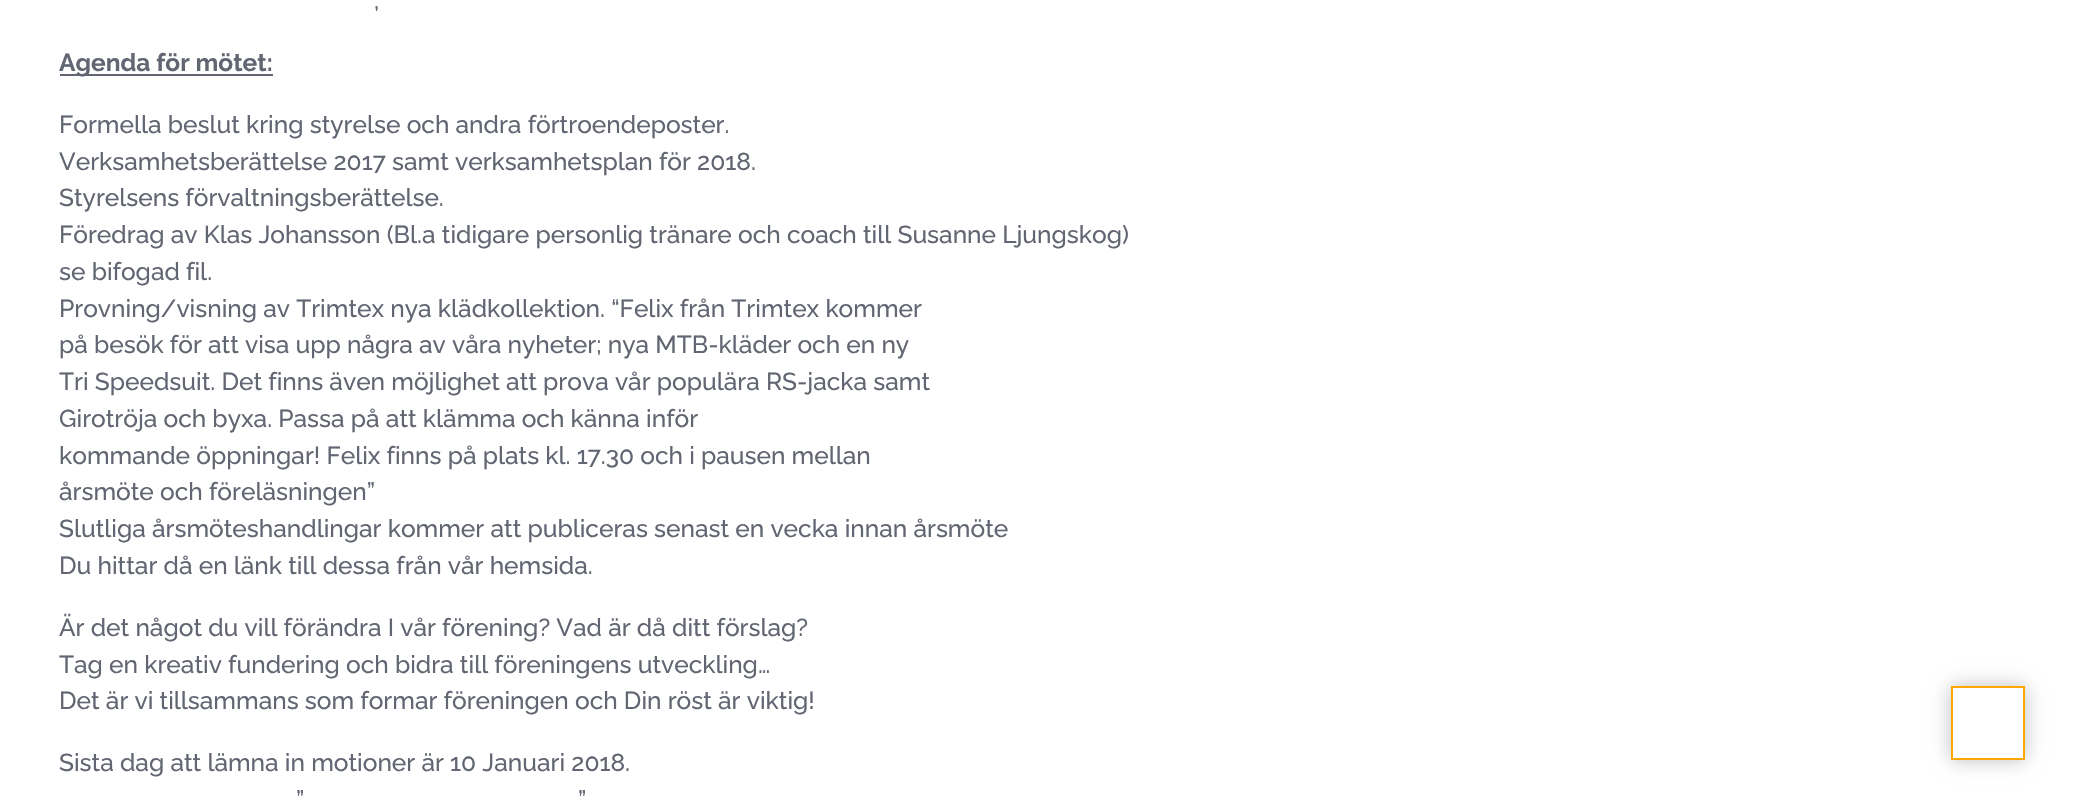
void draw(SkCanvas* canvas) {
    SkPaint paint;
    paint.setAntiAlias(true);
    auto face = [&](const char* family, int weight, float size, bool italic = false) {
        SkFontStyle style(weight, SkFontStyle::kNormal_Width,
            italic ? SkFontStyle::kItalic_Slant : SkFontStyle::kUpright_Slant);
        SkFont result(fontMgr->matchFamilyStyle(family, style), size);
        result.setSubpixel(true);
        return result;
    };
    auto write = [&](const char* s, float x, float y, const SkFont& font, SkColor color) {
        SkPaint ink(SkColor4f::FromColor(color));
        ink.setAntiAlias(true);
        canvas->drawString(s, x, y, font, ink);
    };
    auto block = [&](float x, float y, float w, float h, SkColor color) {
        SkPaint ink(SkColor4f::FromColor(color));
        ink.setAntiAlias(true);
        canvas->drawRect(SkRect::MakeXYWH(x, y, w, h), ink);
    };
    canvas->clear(SK_ColorWHITE);
    auto kFont1 = face("Raleway", 500, 24.5f);
    write(",", 374, 9, kFont1, SkColorSetRGB(98, 102, 114));
    block(60, 74, 213, 2, SkColorSetRGB(98, 102, 114));
    auto kFont2 = face("Raleway", 700, 24.5f);
    write("Agenda för mötet:", 59, 71, kFont2, SkColorSetRGB(98, 102, 114));
    write("Formella beslut kring styrelse och andra förtroendeposter.", 59, 133, kFont1, SkColorSetRGB(98, 102, 114));
    write("Verksamhetsberättelse 2017 samt verksamhetsplan för 2018.", 59, 170, kFont1, SkColorSetRGB(98, 102, 114));
    write("Styrelsens förvaltningsberättelse.", 59, 206, kFont1, SkColorSetRGB(98, 102, 114));
    write("Föredrag av Klas Johansson (Bl.a tidigare personlig tränare och coach till Susanne Ljungskog)", 59, 243, kFont1, SkColorSetRGB(98, 102, 114));
    write("se bifogad fil.", 59, 280, kFont1, SkColorSetRGB(98, 102, 114));
    write("Provning/visning av Trimtex nya klädkollektion. “Felix från Trimtex kommer", 59, 317, kFont1, SkColorSetRGB(98, 102, 114));
    write("på besök för att visa upp några av våra nyheter; nya MTB-kläder och en ny", 59, 353, kFont1, SkColorSetRGB(98, 102, 114));
    write("Tri Speedsuit. Det finns även möjlighet att prova vår populära RS-jacka samt", 59, 390, kFont1, SkColorSetRGB(98, 102, 114));
    write("Girotröja och byxa. Passa på att klämma och känna inför", 59, 427, kFont1, SkColorSetRGB(98, 102, 114));
    write("kommande öppningar! Felix finns på plats kl. 17.30 och i pausen mellan", 59, 464, kFont1, SkColorSetRGB(98, 102, 114));
    write("årsmöte och föreläsningen”", 59, 500, kFont1, SkColorSetRGB(98, 102, 114));
    write("Slutliga årsmöteshandlingar kommer att publiceras senast en vecka innan årsmöte", 59, 537, kFont1, SkColorSetRGB(98, 102, 114));
    write("Du hittar då en länk till dessa från vår hemsida.", 59, 574, kFont1, SkColorSetRGB(98, 102, 114));
    write("Är det något du vill förändra I vår förening? Vad är då ditt förslag?", 59, 636, kFont1, SkColorSetRGB(98, 102, 114));
    write("Tag en kreativ fundering och bidra till föreningens utveckling…", 59, 673, kFont1, SkColorSetRGB(98, 102, 114));
    write("Det är vi tillsammans som formar föreningen och Din röst är viktig!", 59, 709, kFont1, SkColorSetRGB(98, 102, 114));
    write("Sista dag att lämna in motioner är 10 Januari 2018.", 59, 771, kFont1, SkColorSetRGB(98, 102, 114));
    write("”", 296, 808, kFont1, SkColorSetRGB(98, 102, 114));
    write("”", 578, 808, kFont1, SkColorSetRGB(98, 102, 114));
    canvas->save();
    canvas->clipPath(SkPathBuilder(SkPathFillType::kEvenOdd).moveTo(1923, 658).lineTo(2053, 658).lineTo(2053, 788).lineTo(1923, 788).close().moveTo(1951, 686).lineTo(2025, 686).lineTo(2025, 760).lineTo(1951, 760).close().detach(), true);
    paint.setColor(SkColorSetARGB(64, 0, 0, 0));
    paint.setMaskFilter(SkMaskFilter::MakeBlur(kNormal_SkBlurStyle, 9));
    canvas->drawRect(SkRect::MakeXYWH(1951, 686, 74, 74), paint);
    paint.setMaskFilter(nullptr);
    canvas->restore();
    paint.setStyle(SkPaint::kStroke_Style);
    paint.setStrokeWidth(2);
    paint.setColor(SkColorSetRGB(254, 166, 1));
    canvas->drawRect(SkRect::MakeXYWH(1952, 687, 72, 72), paint);
}
